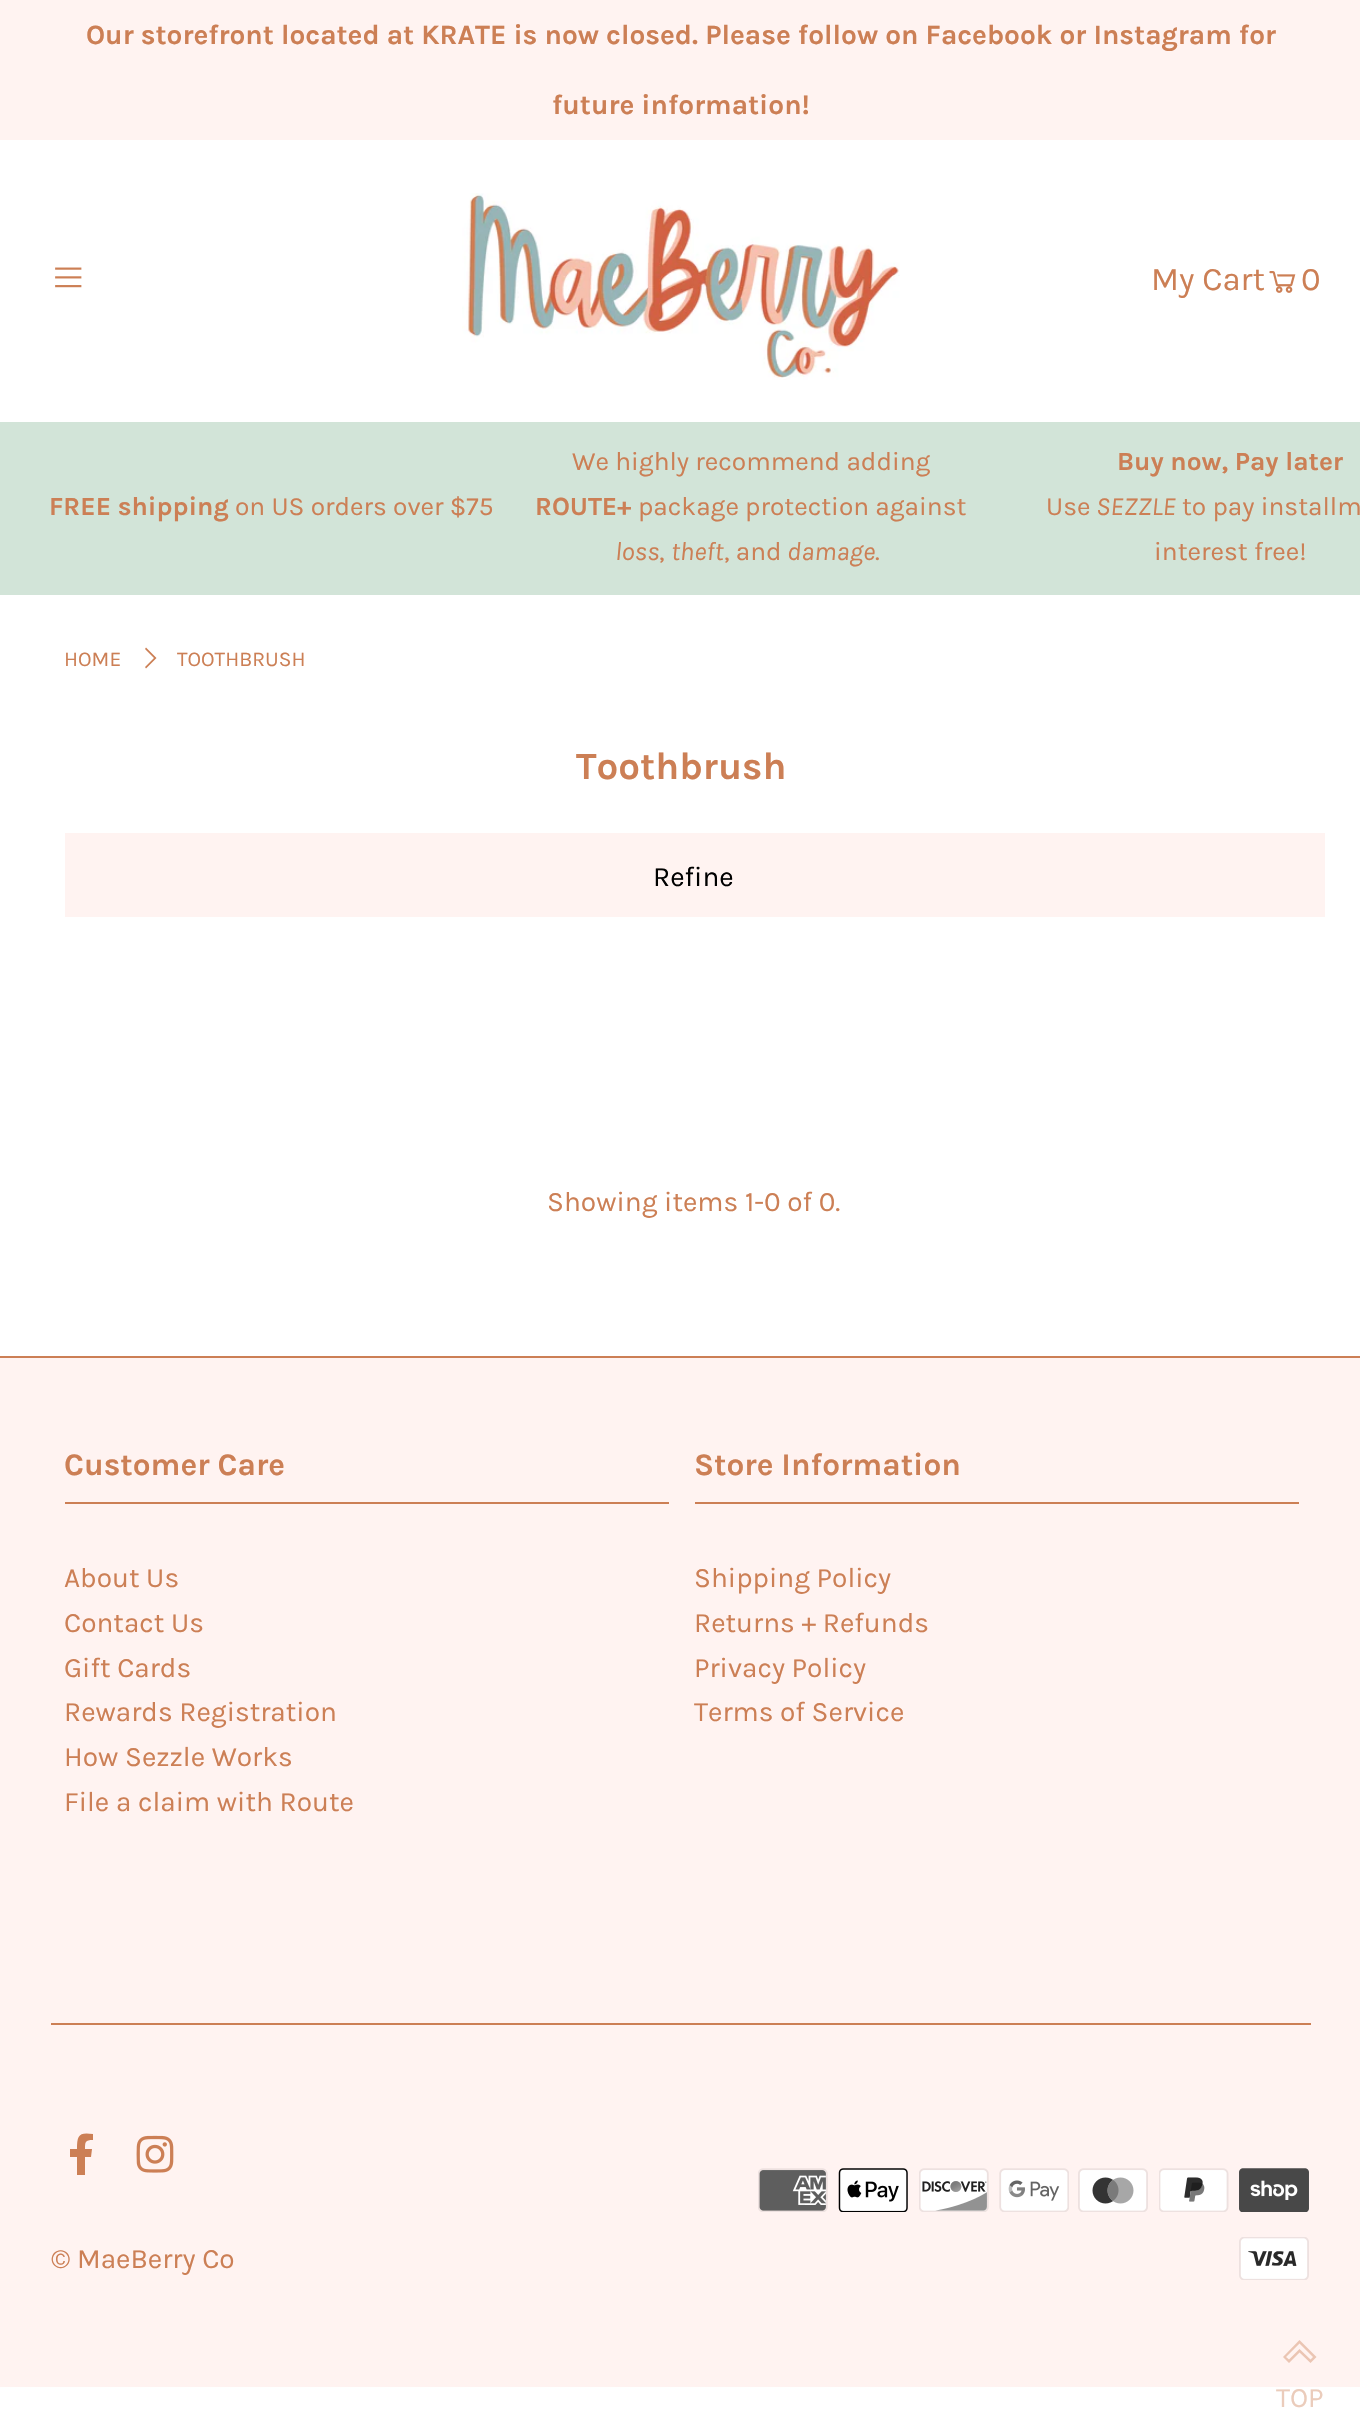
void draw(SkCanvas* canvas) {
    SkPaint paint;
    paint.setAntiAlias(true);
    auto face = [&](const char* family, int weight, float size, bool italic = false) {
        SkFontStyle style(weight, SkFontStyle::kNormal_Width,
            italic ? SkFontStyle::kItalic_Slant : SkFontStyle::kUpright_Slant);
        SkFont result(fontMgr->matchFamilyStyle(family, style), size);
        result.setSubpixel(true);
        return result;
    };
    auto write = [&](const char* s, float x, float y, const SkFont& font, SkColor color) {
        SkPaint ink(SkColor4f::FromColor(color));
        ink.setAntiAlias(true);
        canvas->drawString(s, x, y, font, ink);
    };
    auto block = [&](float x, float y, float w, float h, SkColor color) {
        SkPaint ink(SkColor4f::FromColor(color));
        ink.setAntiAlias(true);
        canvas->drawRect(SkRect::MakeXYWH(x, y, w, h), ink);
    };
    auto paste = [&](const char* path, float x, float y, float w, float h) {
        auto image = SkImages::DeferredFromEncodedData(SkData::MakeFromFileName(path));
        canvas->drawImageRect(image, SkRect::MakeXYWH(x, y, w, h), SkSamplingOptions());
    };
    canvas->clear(SK_ColorWHITE);
    block(0, 0, 1360, 140, SkColorSetRGB(255, 243, 241));
    auto kFont1 = face("Karla", 700, 28);
    write("Our storefront located at KRATE is now closed. Please follow on Facebook or Instagram for", 86, 44, kFont1, SkColorSetRGB(204, 127, 85));
    write("future information!", 552, 114, kFont1, SkColorSetRGB(204, 127, 85));
    paste("pic1.png", 55, 267, 27, 21);
    paste("pic2.png", 462, 193, 438, 187);
    auto kFont2 = face("Karla", 400, 33);
    write("My Cart", 1151, 290, kFont2, SkColorSetRGB(204, 127, 85));
    paste("pic3.png", 1269, 271, 27, 22);
    write("0", 1301, 290, kFont2, SkColorSetRGB(204, 127, 85));
    block(0, 422, 1360, 173, SkColorSetRGB(210, 228, 216));
    auto kFont3 = face("Karla", 700, 26.25f);
    write("FREE shipping", 49, 515, kFont3, SkColorSetRGB(204, 127, 85));
    auto kFont4 = face("Karla", 400, 26.25f);
    write("on US orders over $75", 235, 515, kFont4, SkColorSetRGB(204, 127, 85));
    write("We highly recommend adding", 572, 470, kFont4, SkColorSetRGB(204, 127, 85));
    write("ROUTE+", 535, 515, kFont3, SkColorSetRGB(204, 127, 85));
    write("package protection against", 638, 515, kFont4, SkColorSetRGB(204, 127, 85));
    auto kFont5 = face("Karla", 400, 26.25f, true);
    write("loss", 615, 560, kFont5, SkColorSetRGB(204, 127, 85));
    write(",", 659, 560, kFont4, SkColorSetRGB(204, 127, 85));
    write("theft", 671, 560, kFont5, SkColorSetRGB(204, 127, 85));
    write(", and", 724, 560, kFont4, SkColorSetRGB(204, 127, 85));
    write("damage", 787, 560, kFont5, SkColorSetRGB(204, 127, 85));
    write(".", 875, 560, kFont4, SkColorSetRGB(204, 127, 85));
    write("Buy now, Pay later", 1117, 470, kFont3, SkColorSetRGB(204, 127, 85));
    write("Use", 1046, 515, kFont4, SkColorSetRGB(204, 127, 85));
    write("SEZZLE", 1096, 515, kFont5, SkColorSetRGB(204, 127, 85));
    write("to pay installm", 1182, 515, kFont4, SkColorSetRGB(204, 127, 85));
    write("interest free!", 1154, 560, kFont4, SkColorSetRGB(204, 127, 85));
    auto kFont6 = face("Karla", 400, 21);
    write("HOME", 64, 666, kFont6, SkColorSetRGB(204, 127, 85));
    paint.setColor(SkColorSetRGB(204, 127, 85));
    canvas->drawPath(SkPathBuilder().moveTo(146, 647.5f).lineTo(156.5f, 658).lineTo(146, 668.5f).lineTo(145, 667).lineTo(154, 658).lineTo(145, 649).close().detach(), paint);
    write("TOOTHBRUSH", 177, 666, kFont6, SkColorSetRGB(204, 127, 85));
    auto kFont7 = face("Karla", 700, 38.5f);
    write("Toothbrush", 576, 779, kFont7, SkColorSetRGB(204, 127, 85));
    block(65, 833, 1260, 84, SkColorSetRGB(255, 243, 241));
    auto kFont8 = face("Karla", 400, 28);
    write("Refine", 653, 886, kFont8, SK_ColorBLACK);
    write("Showing items 1-0 of 0.", 547, 1211, kFont8, SkColorSetRGB(204, 127, 85));
    block(0, 1358, 1360, 1029, SkColorSetRGB(255, 243, 241));
    block(0, 1356, 1360, 2, SkColorSetRGB(204, 127, 85));
    block(65, 1502, 604, 2, SkColorSetRGB(204, 127, 85));
    auto kFont9 = face("Karla", 700, 31.5f);
    write("Customer Care", 64, 1475, kFont9, SkColorSetRGB(204, 127, 85));
    write("About Us", 64, 1587, kFont8, SkColorSetRGB(204, 127, 85));
    write("Contact Us", 64, 1632, kFont8, SkColorSetRGB(204, 127, 85));
    write("Gift Cards", 64, 1677, kFont8, SkColorSetRGB(204, 127, 85));
    write("Rewards Registration", 64, 1721, kFont8, SkColorSetRGB(204, 127, 85));
    write("How Sezzle Works", 64, 1766, kFont8, SkColorSetRGB(204, 127, 85));
    write("File a claim with Route", 64, 1811, kFont8, SkColorSetRGB(204, 127, 85));
    block(695, 1502, 604, 2, SkColorSetRGB(204, 127, 85));
    write("Store Information", 694, 1475, kFont9, SkColorSetRGB(204, 127, 85));
    write("Shipping Policy", 694, 1587, kFont8, SkColorSetRGB(204, 127, 85));
    write("Returns + Refunds", 694, 1632, kFont8, SkColorSetRGB(204, 127, 85));
    write("Privacy Policy", 694, 1677, kFont8, SkColorSetRGB(204, 127, 85));
    write("Terms of Service", 694, 1721, kFont8, SkColorSetRGB(204, 127, 85));
    block(51, 2023, 1260, 2, SkColorSetRGB(204, 127, 85));
    canvas->drawPath(SkPathBuilder().moveTo(91, 2157).lineTo(85, 2157).lineTo(85, 2175).lineTo(77, 2175).lineTo(77, 2157).lineTo(70, 2157).lineTo(70, 2149).lineTo(77, 2149).cubicTo(77, 2135, 79, 2132, 93, 2134).lineTo(93, 2140).cubicTo(85, 2140, 85, 2142, 85, 2149).lineTo(92, 2149).close().detach(), paint);
    paste("pic4.png", 136, 2135, 38, 38);
    write("© MaeBerry Co", 51, 2268, kFont8, SkColorSetRGB(204, 127, 85));
    paste("pic5.png", 758, 2168, 70, 44);
    paste("pic6.png", 838, 2168, 70, 44);
    paste("pic7.png", 919, 2168, 70, 44);
    paste("pic8.png", 999, 2168, 70, 44);
    paste("pic9.png", 1078, 2168, 70, 44);
    paste("pic10.png", 1159, 2168, 70, 44);
    paste("pic11.png", 1239, 2168, 70, 44);
    paste("pic12.png", 1239, 2237, 70, 43);
    paint.setColor(SkColorSetRGB(235, 197, 179));
    canvas->drawPath(SkPathBuilder().moveTo(1299.5f, 2340).lineTo(1316.5f, 2357).lineTo(1310.5f, 2363).lineTo(1299.5f, 2352.5f).lineTo(1289, 2363).lineTo(1283, 2357).close().moveTo(1299.5f, 2343.5f).lineTo(1286, 2357).lineTo(1289, 2359.5f).lineTo(1299.5f, 2349).lineTo(1310.5f, 2359.5f).lineTo(1313, 2357).close().detach(), paint);
    write("TOP", 1276, 2407, kFont8, SkColorSetRGB(235, 204, 187));
}
